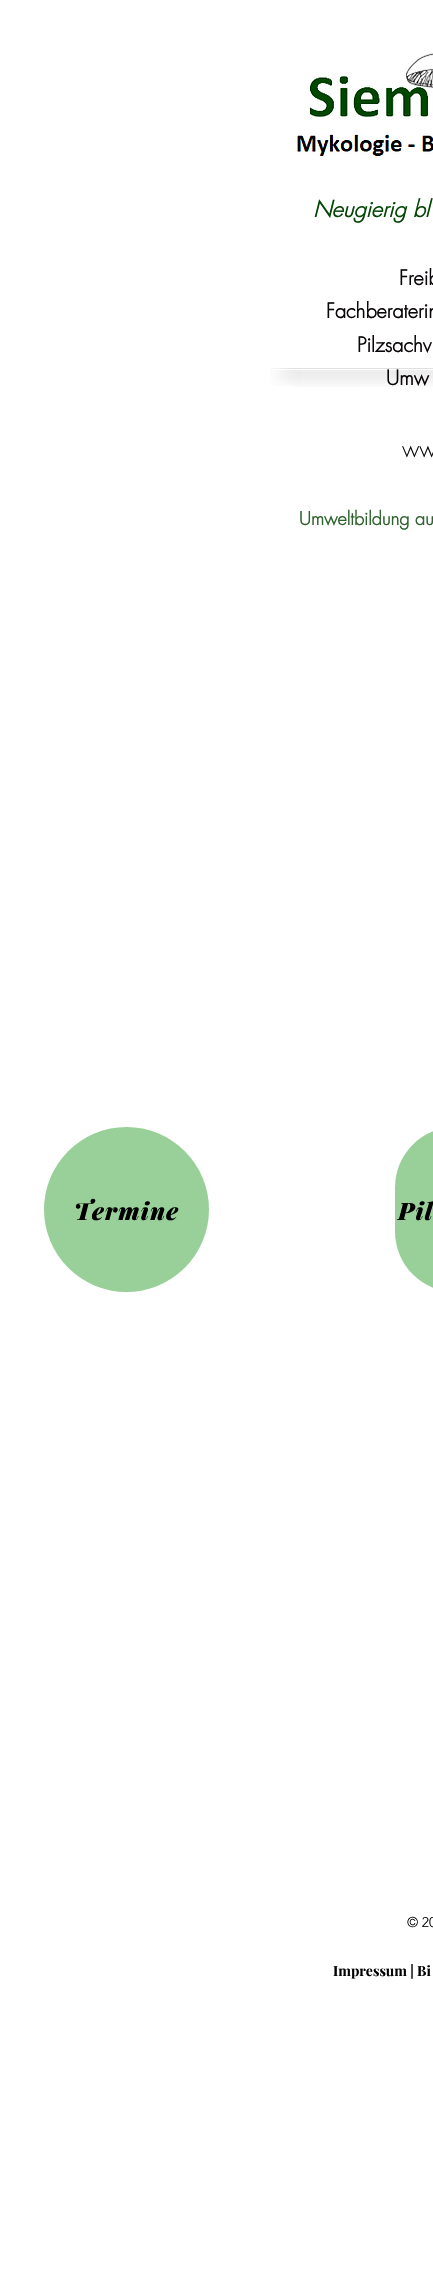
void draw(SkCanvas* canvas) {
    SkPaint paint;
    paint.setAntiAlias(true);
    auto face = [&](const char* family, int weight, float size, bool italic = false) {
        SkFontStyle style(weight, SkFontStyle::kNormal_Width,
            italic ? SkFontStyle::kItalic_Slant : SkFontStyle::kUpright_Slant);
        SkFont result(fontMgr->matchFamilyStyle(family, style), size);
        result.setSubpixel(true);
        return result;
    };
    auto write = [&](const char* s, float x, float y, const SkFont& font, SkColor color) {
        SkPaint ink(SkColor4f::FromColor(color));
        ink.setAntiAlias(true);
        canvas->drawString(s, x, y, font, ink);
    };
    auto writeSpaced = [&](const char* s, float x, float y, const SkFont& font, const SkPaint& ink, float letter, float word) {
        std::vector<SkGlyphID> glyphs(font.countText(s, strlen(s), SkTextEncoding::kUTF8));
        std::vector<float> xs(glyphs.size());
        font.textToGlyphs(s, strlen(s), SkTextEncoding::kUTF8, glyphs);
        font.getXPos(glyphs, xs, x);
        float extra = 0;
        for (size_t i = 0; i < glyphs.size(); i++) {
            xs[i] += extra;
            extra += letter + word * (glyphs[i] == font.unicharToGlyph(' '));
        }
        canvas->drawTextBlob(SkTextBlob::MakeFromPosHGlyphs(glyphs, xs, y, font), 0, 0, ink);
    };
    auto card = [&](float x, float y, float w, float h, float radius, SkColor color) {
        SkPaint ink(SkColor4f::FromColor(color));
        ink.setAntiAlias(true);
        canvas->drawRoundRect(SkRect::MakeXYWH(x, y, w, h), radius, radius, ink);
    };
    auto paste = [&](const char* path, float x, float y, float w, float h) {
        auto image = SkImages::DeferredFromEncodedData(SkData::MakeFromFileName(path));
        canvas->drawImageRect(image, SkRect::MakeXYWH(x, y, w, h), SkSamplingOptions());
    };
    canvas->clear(SK_ColorWHITE);
    paste("pic1.png", 296, 53, 137, 103);
    auto kFont1 = face("futura", 700, 22, true);
    write("Neugierig bl", 313, 217, kFont1, SkColorSetRGB(4, 71, 5));
    auto kFont2 = face("futura", 700, 20);
    write("Freib", 399, 285, kFont2, SkColorSetRGB(10, 6, 9));
    write("Fachberaterin", 326, 318, kFont2, SkColorSetRGB(10, 6, 9));
    write("Pilzsachv", 357, 352, kFont2, SkColorSetRGB(10, 6, 9));
    write("Umw", 386, 385, kFont2, SkColorSetRGB(10, 6, 9));
    auto kFont3 = face("futura", 300, 23);
    write("ww", 402, 457, kFont3, SkColorSetRGB(10, 6, 9));
    auto kFont4 = face("futura", 700, 18);
    write("Umweltbildung au", 299, 525, kFont4, SkColorSetRGB(45, 98, 45));
    paste("pic2.png", 270, 368, 24, 18);
    paste("pic3.png", 294, 368, 139, 19);
    paint.setColor(SkColorSetRGB(153, 208, 153));
    canvas->drawCircle(126.5f, 1209.5f, 82.5f, paint);
    auto kFont5 = face("Playfair Display", 900, 24, true);
    paint.setColor(SK_ColorBLACK);
    writeSpaced("Termine", 74, 1220, kFont5, paint, 1.25f, 0);
    card(395, 1127, 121, 165, 82.5f, SkColorSetRGB(153, 208, 153));
    writeSpaced("Pil", 398, 1220, kFont5, paint, 1.25f, 0);
    auto kFont6 = face("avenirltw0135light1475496", 300, 14);
    write("© 20", 407, 1927, kFont6, SkColorSetRGB(10, 6, 9));
    auto kFont7 = face("Playfair Display", 700, 14);
    write("Impressum | Bi", 333, 1976, kFont7, SK_ColorBLACK);
}
